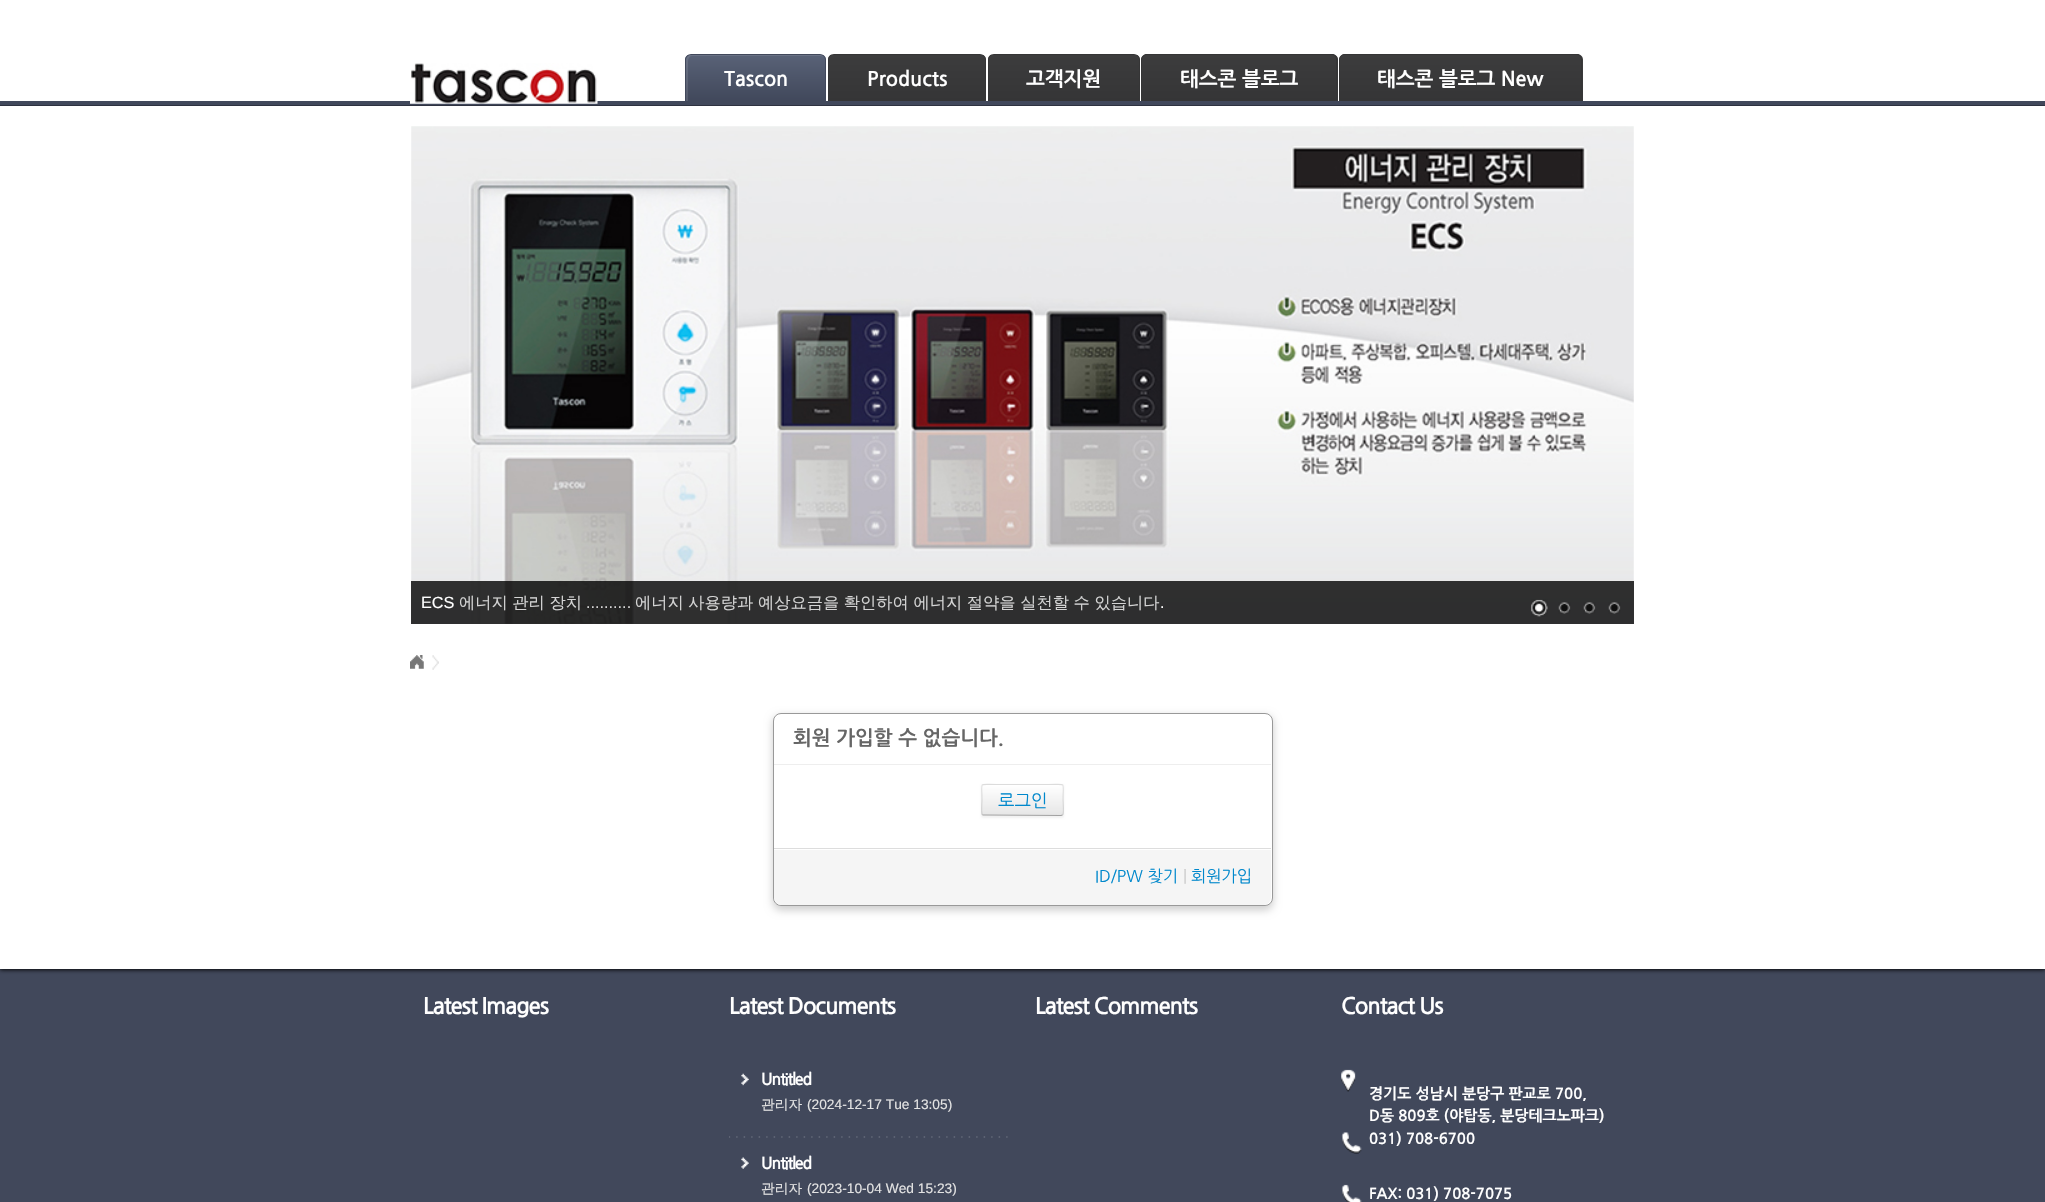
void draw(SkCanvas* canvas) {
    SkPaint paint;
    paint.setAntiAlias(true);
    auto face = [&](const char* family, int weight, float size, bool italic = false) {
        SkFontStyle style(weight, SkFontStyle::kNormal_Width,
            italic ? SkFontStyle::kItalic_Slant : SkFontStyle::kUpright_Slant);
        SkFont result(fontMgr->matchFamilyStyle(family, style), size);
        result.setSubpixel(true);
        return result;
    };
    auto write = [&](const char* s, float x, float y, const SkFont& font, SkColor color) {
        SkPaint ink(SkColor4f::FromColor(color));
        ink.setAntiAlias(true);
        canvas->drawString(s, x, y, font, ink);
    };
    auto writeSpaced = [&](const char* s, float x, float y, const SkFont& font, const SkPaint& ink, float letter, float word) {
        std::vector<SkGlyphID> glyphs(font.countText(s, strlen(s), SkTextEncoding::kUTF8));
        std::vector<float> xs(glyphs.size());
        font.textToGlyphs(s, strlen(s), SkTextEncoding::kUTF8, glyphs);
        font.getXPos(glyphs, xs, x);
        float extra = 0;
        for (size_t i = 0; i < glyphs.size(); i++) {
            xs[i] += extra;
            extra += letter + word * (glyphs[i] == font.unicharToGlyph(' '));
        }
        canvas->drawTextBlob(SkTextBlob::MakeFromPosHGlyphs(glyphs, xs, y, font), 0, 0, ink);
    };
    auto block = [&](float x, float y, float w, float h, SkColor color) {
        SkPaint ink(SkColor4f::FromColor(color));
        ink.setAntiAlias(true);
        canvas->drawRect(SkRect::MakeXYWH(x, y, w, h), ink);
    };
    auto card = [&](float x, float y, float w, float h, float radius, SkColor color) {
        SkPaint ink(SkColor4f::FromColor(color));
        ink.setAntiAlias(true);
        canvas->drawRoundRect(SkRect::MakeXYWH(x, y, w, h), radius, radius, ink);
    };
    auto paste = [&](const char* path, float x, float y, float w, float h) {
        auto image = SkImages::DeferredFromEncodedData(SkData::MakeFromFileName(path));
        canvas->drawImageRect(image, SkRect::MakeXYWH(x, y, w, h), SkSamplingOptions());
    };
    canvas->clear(SK_ColorWHITE);
    block(0, 969, 2045, 233, SkColorSetRGB(65, 72, 91));
    canvas->save();
    canvas->clipPath(SkPathBuilder(SkPathFillType::kEvenOdd).moveTo(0, 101).lineTo(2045, 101).lineTo(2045, 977).lineTo(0, 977).close().moveTo(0, 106).lineTo(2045, 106).lineTo(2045, 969).lineTo(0, 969).close().detach(), true);
    paint.setColor(SkColorSetARGB(230, 0, 0, 0));
    paint.setMaskFilter(SkMaskFilter::MakeBlur(kNormal_SkBlurStyle, 2));
    canvas->drawRect(SkRect::MakeXYWH(0, 108, 2045, 862), paint);
    paint.setMaskFilter(nullptr);
    canvas->restore();
    block(0, 101, 2045, 4, SkColorSetRGB(65, 72, 91));
    paste("pic1.png", 410, 63, 188, 41);
    canvas->save();
    canvas->clipPath(SkPathBuilder().moveTo(691, 54).lineTo(820, 54).cubicTo(823.5f, 54, 826, 56.5f, 826, 60).lineTo(826, 101).lineTo(685, 101).lineTo(685, 60).cubicTo(685, 56.5f, 687.5f, 54, 691, 54).close().detach(), true);
    {
        const SkColor colors[] = {SkColorSetRGB(89, 98, 119), SkColorSetRGB(65, 72, 91)};
        const float stops[] = {0, 1};
        const SkPoint ends[] = {{756, 55}, {756, 101}};
        paint.setShader(SkGradientShader::MakeLinear(ends, colors, stops, 2, SkTileMode::kClamp));
        paint.setAlpha(255);
    }
    canvas->drawRect(SkRect::MakeXYWH(685, 55, 141, 46), paint);
    canvas->restore();
    paint.setShader(nullptr);
    paint.setColor(SkColorSetARGB(26, 255, 255, 255));
    canvas->drawPath(SkPathBuilder().moveTo(692, 56).lineTo(821, 56).lineTo(824, 57).cubicTo(823, 56, 821, 55, 820, 55).lineTo(691, 55).cubicTo(688, 55, 686, 57, 686, 60).lineTo(686, 101).lineTo(688, 101).lineTo(688, 61).cubicTo(688, 58, 690, 56, 692, 56).close().detach(), paint);
    paint.setColor(SkColorSetRGB(65, 72, 91));
    canvas->drawPath(SkPathBuilder(SkPathFillType::kEvenOdd).moveTo(691, 54).lineTo(820, 54).cubicTo(823, 54, 826, 57, 826, 60).lineTo(826, 101).lineTo(685, 101).lineTo(685, 60).cubicTo(685, 57, 688, 54, 691, 54).close().moveTo(691, 55).lineTo(820, 55).cubicTo(823, 55, 825, 57, 825, 60).lineTo(825, 101).lineTo(686, 101).lineTo(686, 60).cubicTo(686, 57, 688, 55, 691, 55).close().detach(), paint);
    auto kFont1 = face("NanumGothic", 700, 20);
    write("Tascon", 724, 86, kFont1, SK_ColorWHITE);
    canvas->save();
    canvas->clipPath(SkPathBuilder().moveTo(834, 54).lineTo(980, 54).cubicTo(983.5f, 54, 986, 56.5f, 986, 60).lineTo(986, 101).lineTo(828, 101).lineTo(828, 60).cubicTo(828, 56.5f, 830.5f, 54, 834, 54).close().detach(), true);
    {
        const SkColor colors[] = {SkColorSetRGB(60, 60, 61), SkColorSetRGB(53, 53, 54)};
        const float stops[] = {0, 1};
        const SkPoint ends[] = {{907, 55}, {907, 101}};
        paint.setShader(SkGradientShader::MakeLinear(ends, colors, stops, 2, SkTileMode::kClamp));
        paint.setAlpha(255);
    }
    canvas->drawRect(SkRect::MakeXYWH(828, 55, 158, 46), paint);
    canvas->restore();
    paint.setShader(nullptr);
    paint.setColor(SkColorSetRGB(53, 53, 54));
    canvas->drawPath(SkPathBuilder(SkPathFillType::kEvenOdd).moveTo(834, 54).lineTo(980, 54).cubicTo(983, 54, 986, 57, 986, 60).lineTo(986, 101).lineTo(828, 101).lineTo(828, 60).cubicTo(828, 57, 830, 54, 834, 54).close().moveTo(834, 55).lineTo(980, 55).cubicTo(983, 55, 985, 57, 985, 60).lineTo(985, 101).lineTo(829, 101).lineTo(829, 60).cubicTo(829, 57, 831, 55, 834, 55).close().detach(), paint);
    write("Products", 867, 86, kFont1, SK_ColorWHITE);
    canvas->save();
    canvas->clipPath(SkPathBuilder().moveTo(994, 54).lineTo(1134, 54).cubicTo(1137.5f, 54, 1140, 56.5f, 1140, 60).lineTo(1140, 101).lineTo(988, 101).lineTo(988, 60).cubicTo(988, 56.5f, 990.5f, 54, 994, 54).close().detach(), true);
    {
        const SkColor colors[] = {SkColorSetRGB(60, 60, 61), SkColorSetRGB(53, 53, 54)};
        const float stops[] = {0, 1};
        const SkPoint ends[] = {{1064, 55}, {1064, 101}};
        paint.setShader(SkGradientShader::MakeLinear(ends, colors, stops, 2, SkTileMode::kClamp));
        paint.setAlpha(255);
    }
    canvas->drawRect(SkRect::MakeXYWH(988, 55, 152, 46), paint);
    canvas->restore();
    paint.setShader(nullptr);
    paint.setColor(SkColorSetRGB(53, 53, 54));
    canvas->drawPath(SkPathBuilder(SkPathFillType::kEvenOdd).moveTo(994, 54).lineTo(1134, 54).cubicTo(1137, 54, 1140, 57, 1140, 60).lineTo(1140, 101).lineTo(988, 101).lineTo(988, 60).cubicTo(988, 57, 990, 54, 994, 54).close().moveTo(994, 55).lineTo(1134, 55).cubicTo(1137, 55, 1139, 57, 1139, 60).lineTo(1139, 101).lineTo(989, 101).lineTo(989, 60).cubicTo(989, 57, 991, 55, 994, 55).close().detach(), paint);
    write("고객지원", 1026, 86, kFont1, SK_ColorWHITE);
    canvas->save();
    canvas->clipPath(SkPathBuilder().moveTo(1147, 54).lineTo(1332, 54).cubicTo(1335.5f, 54, 1338, 56.5f, 1338, 60).lineTo(1338, 101).lineTo(1141, 101).lineTo(1141, 60).cubicTo(1141, 56.5f, 1143.5f, 54, 1147, 54).close().detach(), true);
    {
        const SkColor colors[] = {SkColorSetRGB(60, 60, 61), SkColorSetRGB(53, 53, 54)};
        const float stops[] = {0, 1};
        const SkPoint ends[] = {{1239, 9}, {1239, 55}};
        paint.setShader(SkGradientShader::MakeLinear(ends, colors, stops, 2, SkTileMode::kClamp));
        paint.setAlpha(255);
    }
    canvas->drawRect(SkRect::MakeXYWH(1141, 54, 197, 1), paint);
    {
        const SkColor colors[] = {SkColorSetRGB(60, 60, 61), SkColorSetRGB(53, 53, 54)};
        const float stops[] = {0, 1};
        const SkPoint ends[] = {{1239, 55}, {1239, 101}};
        paint.setShader(SkGradientShader::MakeLinear(ends, colors, stops, 2, SkTileMode::kClamp));
        paint.setAlpha(255);
    }
    canvas->drawRect(SkRect::MakeXYWH(1141, 55, 197, 46), paint);
    canvas->restore();
    paint.setShader(nullptr);
    paint.setColor(SkColorSetRGB(53, 53, 54));
    canvas->drawPath(SkPathBuilder(SkPathFillType::kEvenOdd).moveTo(1148, 54).lineTo(1331, 54).cubicTo(1335, 54, 1338, 57, 1338, 60).lineTo(1338, 101).lineTo(1141, 101).lineTo(1141, 60).cubicTo(1141, 57, 1144, 54, 1148, 54).close().moveTo(1148, 55).lineTo(1331, 55).cubicTo(1334, 55, 1336, 57, 1336, 60).lineTo(1336, 101).lineTo(1142, 101).lineTo(1142, 60).cubicTo(1142, 57, 1145, 55, 1148, 55).close().detach(), paint);
    write("태스콘 블로그", 1180, 86, kFont1, SK_ColorWHITE);
    canvas->save();
    canvas->clipPath(SkPathBuilder().moveTo(1345, 54).lineTo(1577, 54).cubicTo(1580.5f, 54, 1583, 56.5f, 1583, 60).lineTo(1583, 101).lineTo(1339, 101).lineTo(1339, 60).cubicTo(1339, 56.5f, 1341.5f, 54, 1345, 54).close().detach(), true);
    {
        const SkColor colors[] = {SkColorSetRGB(60, 60, 61), SkColorSetRGB(53, 53, 54)};
        const float stops[] = {0, 1};
        const SkPoint ends[] = {{1461, 9}, {1461, 55}};
        paint.setShader(SkGradientShader::MakeLinear(ends, colors, stops, 2, SkTileMode::kClamp));
        paint.setAlpha(255);
    }
    canvas->drawRect(SkRect::MakeXYWH(1339, 54, 244, 1), paint);
    {
        const SkColor colors[] = {SkColorSetRGB(60, 60, 61), SkColorSetRGB(53, 53, 54)};
        const float stops[] = {0, 1};
        const SkPoint ends[] = {{1461, 55}, {1461, 101}};
        paint.setShader(SkGradientShader::MakeLinear(ends, colors, stops, 2, SkTileMode::kClamp));
        paint.setAlpha(255);
    }
    canvas->drawRect(SkRect::MakeXYWH(1339, 55, 244, 46), paint);
    canvas->restore();
    paint.setShader(nullptr);
    paint.setColor(SkColorSetRGB(53, 53, 54));
    canvas->drawPath(SkPathBuilder(SkPathFillType::kEvenOdd).moveTo(1345, 54).lineTo(1576, 54).cubicTo(1580, 54, 1582, 57, 1582, 60).lineTo(1582, 101).lineTo(1339, 101).lineTo(1339, 60).cubicTo(1339, 57, 1342, 54, 1345, 54).close().moveTo(1345, 55).lineTo(1576, 55).cubicTo(1579, 55, 1581, 57, 1581, 60).lineTo(1581, 101).lineTo(1340, 101).lineTo(1340, 60).cubicTo(1340, 57, 1342, 55, 1345, 55).close().detach(), paint);
    write("태스콘 블로그 New", 1377, 86, kFont1, SK_ColorWHITE);
    block(0, 105, 2045, 1, SkColorSetRGB(46, 50, 64));
    paste("pic2.png", 411, 126, 1223, 498);
    block(411, 581, 1223, 43, SkColorSetARGB(204, 0, 0, 0));
    auto kFont2 = face("Liberation Sans", 400, 16.25f);
    write("ECS", 421, 608, kFont2, SK_ColorWHITE);
    auto kFont3 = face("WenQuanYi Zen Hei", 500, 16.25f);
    paint.setColor(SkColorSetRGB(212, 212, 212));
    writeSpaced("에너지 관리 장치", 459, 608, kFont3, paint, 0, -0.25f);
    write("..........", 586, 608, kFont2, SkColorSetRGB(212, 212, 212));
    writeSpaced("에너지 사용량과 예상요금을 확인하여 에너지 절약을 실천할 수 있습니다", 635, 608, kFont3, paint, 0, -0.25f);
    write(".", 1160, 608, kFont2, SK_ColorWHITE);
    paste("pic3.png", 1531, 599, 17, 18);
    paste("pic4.png", 1558, 602, 13, 12);
    paste("pic5.png", 1583, 602, 13, 12);
    paste("pic5.png", 1608, 602, 13, 12);
    paste("pic6.png", 410, 655, 14, 14);
    paste("pic7.png", 432, 655, 7, 15);
    paint.setColor(SkColorSetRGB(204, 204, 204));
    paint.setMaskFilter(SkMaskFilter::MakeBlur(kNormal_SkBlurStyle, 4.5f));
    canvas->drawRoundRect(SkRect::MakeXYWH(773, 716, 500, 194), 8, 8, paint);
    paint.setMaskFilter(nullptr);
    paint.setColor(SK_ColorWHITE);
    canvas->drawRoundRect(SkRect::MakeXYWH(773.5f, 713.5f, 499, 192), 7.5f, 7.5f, paint);
    paint.setStyle(SkPaint::kStroke_Style);
    paint.setStrokeWidth(1);
    paint.setColor(SkColorSetRGB(153, 153, 153));
    canvas->drawRoundRect(SkRect::MakeXYWH(773.5f, 713.5f, 499, 192), 7.5f, 7.5f, paint);
    block(774, 764, 497, 1, SkColorSetRGB(238, 238, 238));
    write("회원 가입할 수 없습니다.", 793, 745, kFont1, SkColorSetRGB(102, 102, 102));
    paint.setStyle(SkPaint::kFill_Style);
    paint.setColor(SkColorSetARGB(13, 0, 0, 0));
    paint.setMaskFilter(SkMaskFilter::MakeBlur(kNormal_SkBlurStyle, 1));
    canvas->drawRoundRect(SkRect::MakeXYWH(981, 785, 83, 33), 2.5f, 2.5f, paint);
    paint.setMaskFilter(nullptr);
    card(981, 784, 83, 32, 2.5f, SkColorSetRGB(245, 245, 245));
    canvas->save();
    canvas->clipPath(SkPathBuilder().moveTo(983.5f, 784).lineTo(1061.5f, 784).cubicTo(1063, 784, 1064, 785, 1064, 786.5f).lineTo(1064, 813.5f).cubicTo(1064, 815, 1063, 816, 1061.5f, 816).lineTo(983.5f, 816).cubicTo(982, 816, 981, 815, 981, 813.5f).lineTo(981, 786.5f).cubicTo(981, 785, 982, 784, 983.5f, 784).close().detach(), true);
    {
        const SkColor colors[] = {SK_ColorWHITE, SkColorSetRGB(230, 230, 230)};
        const float stops[] = {0, 1};
        const SkPoint ends[] = {{1023, 785}, {1023, 815}};
        paint.setShader(SkGradientShader::MakeLinear(ends, colors, stops, 2, SkTileMode::kClamp));
        paint.setAlpha(255);
    }
    canvas->drawRect(SkRect::MakeXYWH(981, 785, 83, 30), paint);
    canvas->restore();
    paint.setShader(nullptr);
    paint.setColor(SkColorSetARGB(51, 255, 255, 255));
    canvas->drawPath(SkPathBuilder().moveTo(984, 786).lineTo(1061, 786).cubicTo(1062, 786, 1062, 787, 1062, 788).lineTo(1062, 815).cubicTo(1063, 815, 1063, 815, 1063, 814).lineTo(1063, 786).cubicTo(1063, 785, 1063, 785, 1062, 785).lineTo(984, 785).cubicTo(983, 785, 983, 785, 983, 786).close().detach(), paint);
    paint.setStyle(SkPaint::kStroke_Style);
    paint.setStrokeWidth(1.2f);
    paint.setColor(SkColorSetRGB(162, 162, 162));
    canvas->drawPath(SkPathBuilder().moveTo(1062.5f, 815).lineTo(1061, 815.5f).lineTo(982.5f, 815).detach(), paint);
    paint.setColor(SkColorSetARGB(26, 0, 0, 0));
    canvas->drawPath(SkPathBuilder().moveTo(982.5f, 815).cubicTo(981, 813.5f, 982, 802.5f, 982, 800).cubicTo(982, 781, 978, 784.5f, 996.5f, 784.5f).lineTo(1048.5f, 784.5f).cubicTo(1067, 784.5f, 1063, 781, 1063, 800).cubicTo(1063, 802.5f, 1064, 813.5f, 1062.5f, 815).detach(), paint);
    auto kFont4 = face("NanumGothic", 400, 17.5f);
    write("로그인", 998, 807, kFont4, SkColorSetRGB(0, 136, 204));
    paint.setStyle(SkPaint::kFill_Style);
    paint.setColor(SkColorSetRGB(245, 245, 245));
    canvas->drawPath(SkPathBuilder().moveTo(774, 848).lineTo(1271, 848).lineTo(1271, 897).cubicTo(1271, 901.5f, 1267.5f, 905, 1263, 905).lineTo(782, 905).cubicTo(777.5f, 905, 774, 901.5f, 774, 897).close().detach(), paint);
    block(774, 849, 497, 1, SK_ColorWHITE);
    block(774, 848, 497, 1, SkColorSetRGB(221, 221, 221));
    auto kFont5 = face("NanumGothic", 400, 16.25f);
    write("ID/PW 찾기", 1095, 882, kFont5, SkColorSetRGB(0, 136, 204));
    write("|", 1183, 882, kFont5, SkColorSetRGB(204, 204, 204));
    write("회원가입", 1191, 882, kFont5, SkColorSetRGB(0, 136, 204));
    auto kFont6 = face("NanumGothic", 700, 22.5f);
    paint.setColor(SK_ColorWHITE);
    writeSpaced("Latest Images", 423, 1014, kFont6, paint, -1.25f, 0);
    writeSpaced("Latest Documents", 729, 1014, kFont6, paint, -1.25f, 0);
    paste("pic8.png", 741, 1073, 8, 13);
    auto kFont7 = face("NanumGothic", 700, 16.25f);
    writeSpaced("Untitled", 761, 1085, kFont7, paint, -1.25f, 0);
    auto kFont8 = face("WenQuanYi Zen Hei", 500, 13.75f);
    write("관리자", 761, 1109, kFont8, SkColorSetRGB(227, 227, 227));
    auto kFont9 = face("Liberation Sans", 400, 13.75f);
    write("(2024-12-17 Tue 13:05)", 807, 1109, kFont9, SkColorSetRGB(227, 227, 227));
    paste("pic9.png", 729, 1136, 279, 2);
    paste("pic10.png", 741, 1157, 8, 12);
    writeSpaced("Untitled", 761, 1169, kFont7, paint, -1.25f, 0);
    write("관리자", 761, 1193, kFont8, SkColorSetRGB(227, 227, 227));
    write("(2023-10-04 Wed 15:23)", 807, 1193, kFont9, SkColorSetRGB(227, 227, 227));
    writeSpaced("Latest Comments", 1035, 1014, kFont6, paint, -1.25f, 0);
    writeSpaced("Contact Us", 1341, 1014, kFont6, paint, -1.25f, 0);
    paste("pic11.png", 1341, 1069, 21, 85);
    auto kFont10 = face("NanumGothic", 700, 15);
    write("경기도 성남시 분당구 판교로 700,", 1369, 1099, kFont10, SK_ColorWHITE);
    write("D동 809호 (야탑동, 분당테크노파크)", 1369, 1121, kFont10, SK_ColorWHITE);
    write("031) 708-6700", 1369, 1144, kFont10, SK_ColorWHITE);
    paste("pic12.png", 1341, 1184, 21, 18);
    write("FAX: 031) 708-7075", 1369, 1199, kFont10, SK_ColorWHITE);
}
